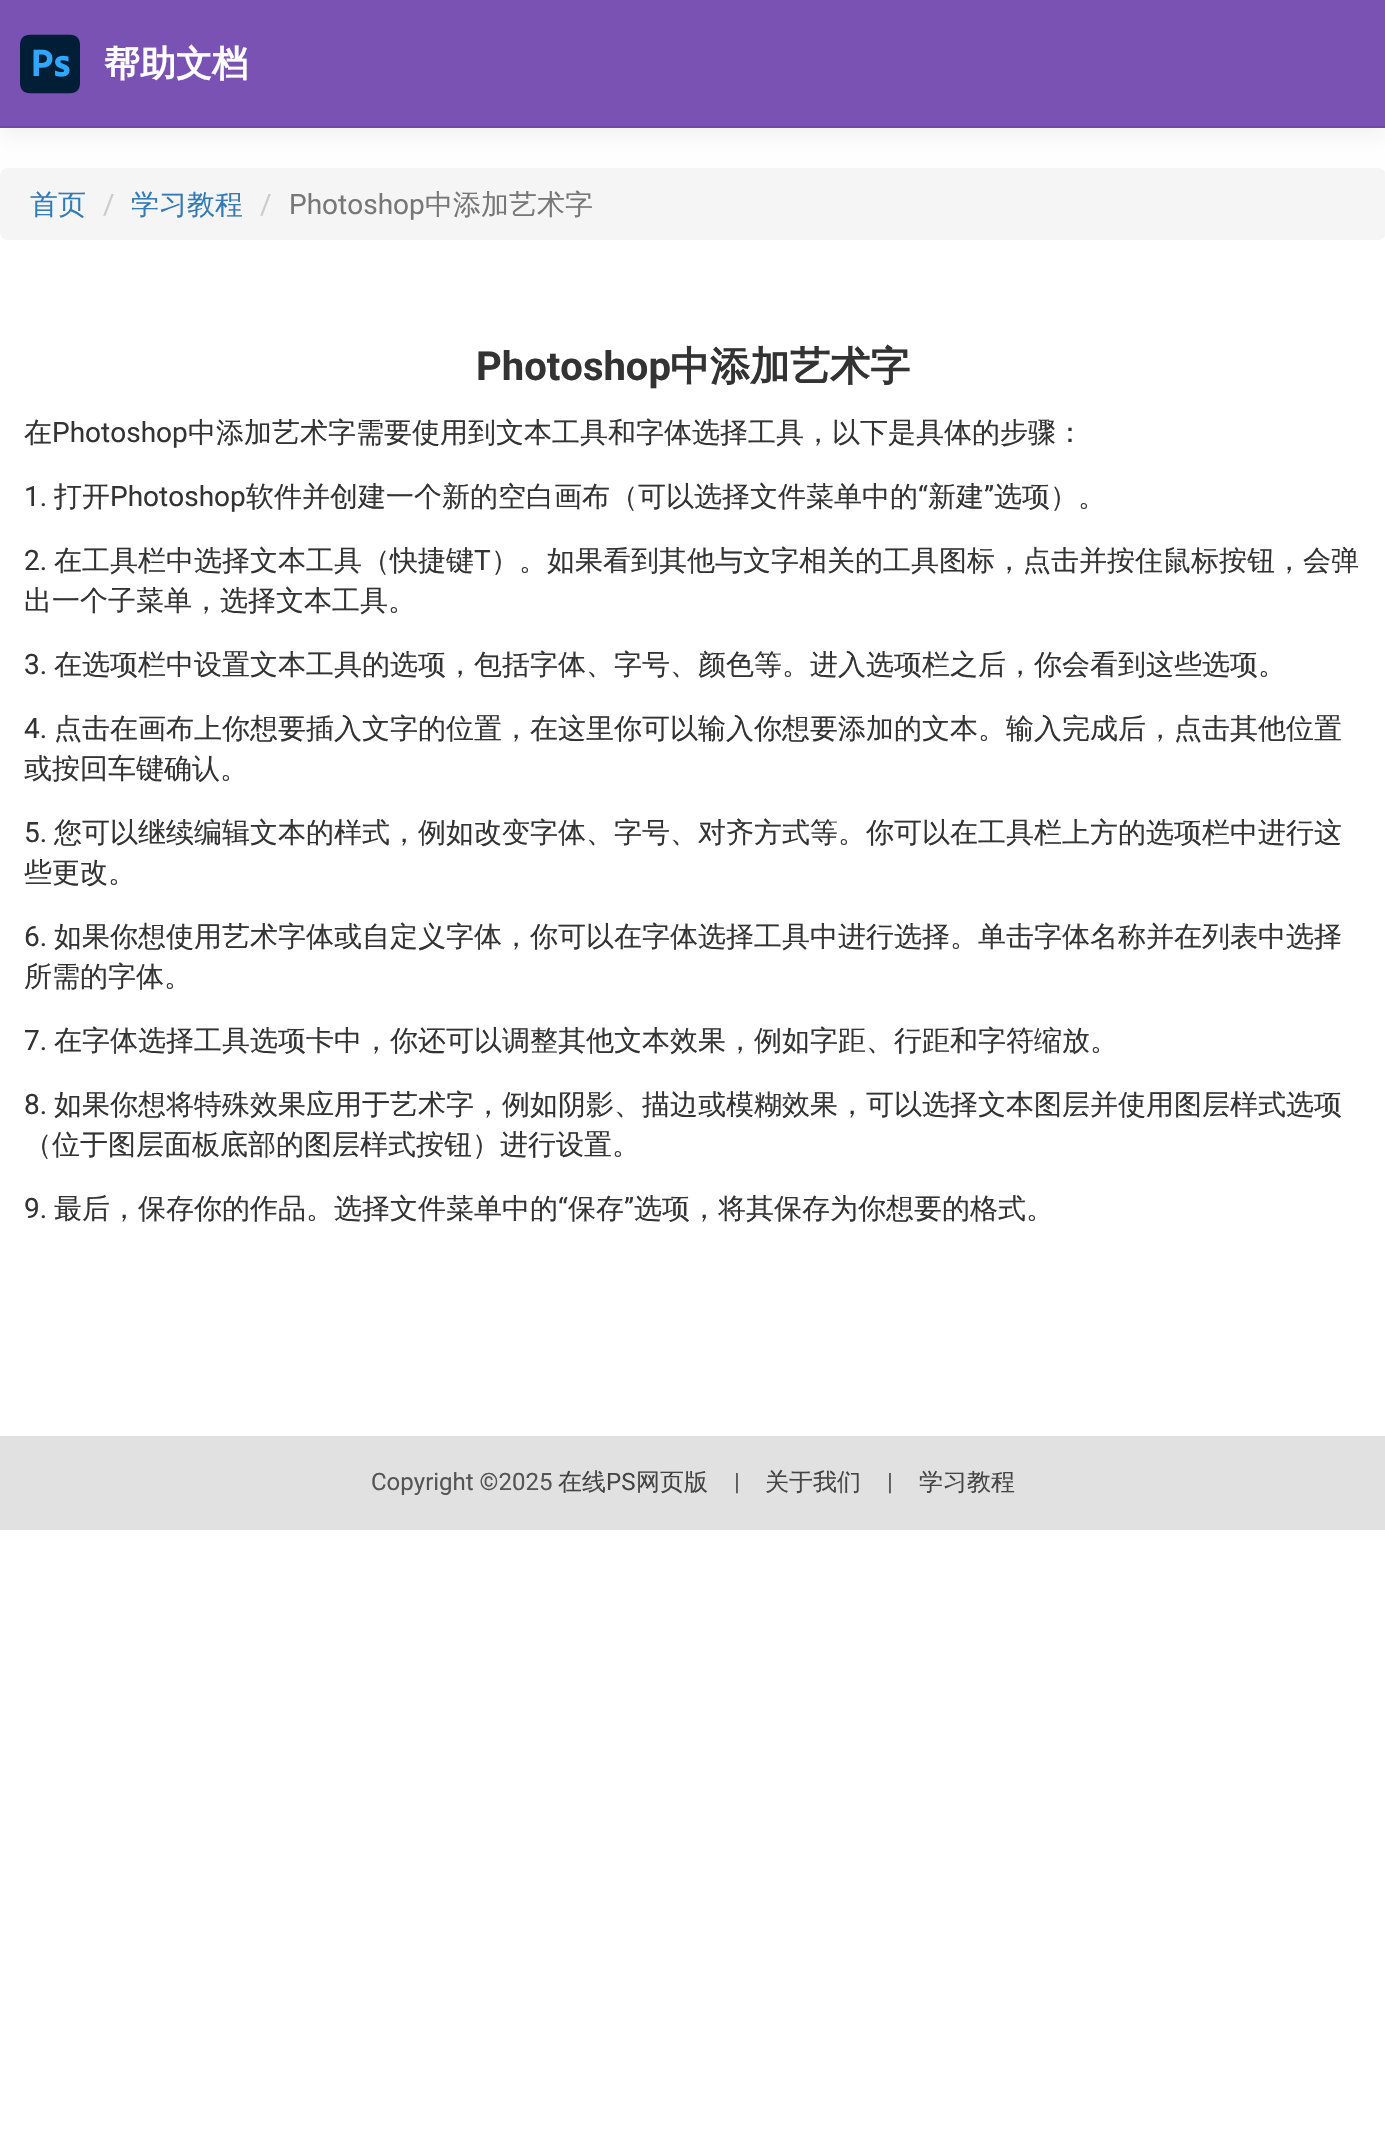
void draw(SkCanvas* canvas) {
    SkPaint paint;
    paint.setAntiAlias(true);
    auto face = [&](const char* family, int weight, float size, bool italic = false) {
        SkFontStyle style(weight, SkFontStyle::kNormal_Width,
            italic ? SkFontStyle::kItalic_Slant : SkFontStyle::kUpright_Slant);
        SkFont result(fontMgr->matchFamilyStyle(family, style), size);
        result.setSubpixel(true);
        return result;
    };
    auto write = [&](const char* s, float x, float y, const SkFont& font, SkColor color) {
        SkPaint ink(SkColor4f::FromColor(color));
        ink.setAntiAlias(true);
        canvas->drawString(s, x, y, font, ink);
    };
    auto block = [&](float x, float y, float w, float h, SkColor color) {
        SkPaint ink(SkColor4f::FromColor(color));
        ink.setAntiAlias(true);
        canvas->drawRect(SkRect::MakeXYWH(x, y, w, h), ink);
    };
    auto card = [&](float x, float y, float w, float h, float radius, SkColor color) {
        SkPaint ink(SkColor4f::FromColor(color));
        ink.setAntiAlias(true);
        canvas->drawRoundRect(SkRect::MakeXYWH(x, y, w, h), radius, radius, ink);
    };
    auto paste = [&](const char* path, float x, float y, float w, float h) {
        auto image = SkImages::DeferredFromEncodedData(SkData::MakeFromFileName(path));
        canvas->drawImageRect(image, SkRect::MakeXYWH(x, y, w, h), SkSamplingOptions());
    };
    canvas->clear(SK_ColorWHITE);
    card(0, 168, 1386, 72, 8, SkColorSetRGB(245, 245, 245));
    paint.setColor(SkColorSetARGB(13, 0, 0, 0));
    paint.setMaskFilter(SkMaskFilter::MakeBlur(kNormal_SkBlurStyle, 10));
    canvas->drawRect(SkRect::MakeXYWH(0, 10, 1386, 128), paint);
    paint.setMaskFilter(nullptr);
    block(0, 0, 1385, 126, SkColorSetRGB(121, 82, 179));
    block(0, 126, 1385, 2, SkColorSetRGB(109, 74, 161));
    paste("pic1.png", 20, 34, 60, 60);
    auto kFont1 = face("WenQuanYi Zen Hei", 700, 36);
    write("帮助文档", 104, 76, kFont1, SK_ColorWHITE);
    auto kFont2 = face("WenQuanYi Zen Hei", 500, 28);
    write("首页", 30, 214, kFont2, SkColorSetRGB(51, 122, 183));
    auto kFont3 = face("Roboto", 400, 28);
    write("/", 103, 214, kFont3, SkColorSetRGB(204, 204, 204));
    write("学习教程", 131, 214, kFont2, SkColorSetRGB(51, 122, 183));
    write("/", 260, 214, kFont3, SkColorSetRGB(204, 204, 204));
    write("Photoshop", 289, 214, kFont3, SkColorSetRGB(119, 119, 119));
    write("中添加艺术字", 425, 214, kFont2, SkColorSetRGB(119, 119, 119));
    auto kFont4 = face("Roboto", 700, 40);
    write("Photoshop", 476, 380, kFont4, SkColorSetRGB(51, 51, 51));
    auto kFont5 = face("WenQuanYi Zen Hei", 700, 40);
    write("中添加艺术字", 670, 380, kFont5, SkColorSetRGB(51, 51, 51));
    write("在", 24, 442, kFont2, SkColorSetRGB(51, 51, 51));
    write("Photoshop", 52, 442, kFont3, SkColorSetRGB(51, 51, 51));
    write("中添加艺术字需要使用到文本工具和字体选择工具，以下是具体的步骤：", 188, 442, kFont2, SkColorSetRGB(51, 51, 51));
    write("1.", 24, 506, kFont3, SkColorSetRGB(51, 51, 51));
    write("打开", 54, 506, kFont2, SkColorSetRGB(51, 51, 51));
    write("Photoshop", 110, 506, kFont3, SkColorSetRGB(51, 51, 51));
    write("软件并创建一个新的空白画布（可以选择文件菜单中的", 246, 506, kFont2, SkColorSetRGB(51, 51, 51));
    write("“", 918, 506, kFont3, SkColorSetRGB(51, 51, 51));
    write("新建", 928, 506, kFont2, SkColorSetRGB(51, 51, 51));
    write("”", 984, 506, kFont3, SkColorSetRGB(51, 51, 51));
    write("选项）。", 994, 506, kFont2, SkColorSetRGB(51, 51, 51));
    write("2.", 24, 570, kFont3, SkColorSetRGB(51, 51, 51));
    write("在工具栏中选择文本工具（快捷键", 54, 570, kFont2, SkColorSetRGB(51, 51, 51));
    write("T", 474, 570, kFont3, SkColorSetRGB(51, 51, 51));
    write("）。如果看到其他与文字相关的工具图标，点击并按住鼠标按钮，会弹", 491, 570, kFont2, SkColorSetRGB(51, 51, 51));
    write("出一个子菜单，选择文本工具。", 24, 610, kFont2, SkColorSetRGB(51, 51, 51));
    write("3.", 24, 674, kFont3, SkColorSetRGB(51, 51, 51));
    write("在选项栏中设置文本工具的选项，包括字体、字号、颜色等。进入选项栏之后，你会看到这些选项。", 54, 674, kFont2, SkColorSetRGB(51, 51, 51));
    write("4.", 24, 738, kFont3, SkColorSetRGB(51, 51, 51));
    write("点击在画布上你想要插入文字的位置，在这里你可以输入你想要添加的文本。输入完成后，点击其他位置", 54, 738, kFont2, SkColorSetRGB(51, 51, 51));
    write("或按回车键确认。", 24, 778, kFont2, SkColorSetRGB(51, 51, 51));
    write("5.", 24, 842, kFont3, SkColorSetRGB(51, 51, 51));
    write("您可以继续编辑文本的样式，例如改变字体、字号、对齐方式等。你可以在工具栏上方的选项栏中进行这", 54, 842, kFont2, SkColorSetRGB(51, 51, 51));
    write("些更改。", 24, 882, kFont2, SkColorSetRGB(51, 51, 51));
    write("6.", 24, 946, kFont3, SkColorSetRGB(51, 51, 51));
    write("如果你想使用艺术字体或自定义字体，你可以在字体选择工具中进行选择。单击字体名称并在列表中选择", 54, 946, kFont2, SkColorSetRGB(51, 51, 51));
    write("所需的字体。", 24, 986, kFont2, SkColorSetRGB(51, 51, 51));
    write("7.", 24, 1050, kFont3, SkColorSetRGB(51, 51, 51));
    write("在字体选择工具选项卡中，你还可以调整其他文本效果，例如字距、行距和字符缩放。", 54, 1050, kFont2, SkColorSetRGB(51, 51, 51));
    write("8.", 24, 1114, kFont3, SkColorSetRGB(51, 51, 51));
    write("如果你想将特殊效果应用于艺术字，例如阴影、描边或模糊效果，可以选择文本图层并使用图层样式选项", 54, 1114, kFont2, SkColorSetRGB(51, 51, 51));
    write("（位于图层面板底部的图层样式按钮）进行设置。", 24, 1154, kFont2, SkColorSetRGB(51, 51, 51));
    write("9.", 24, 1218, kFont3, SkColorSetRGB(51, 51, 51));
    write("最后，保存你的作品。选择文件菜单中的", 54, 1218, kFont2, SkColorSetRGB(51, 51, 51));
    write("“", 558, 1218, kFont3, SkColorSetRGB(51, 51, 51));
    write("保存", 568, 1218, kFont2, SkColorSetRGB(51, 51, 51));
    write("”", 624, 1218, kFont3, SkColorSetRGB(51, 51, 51));
    write("选项，将其保存为你想要的格式。", 634, 1218, kFont2, SkColorSetRGB(51, 51, 51));
    block(0, 1436, 1385, 94, SkColorSetRGB(225, 225, 225));
    auto kFont6 = face("Roboto", 400, 24);
    write("Copyright ©2025", 371, 1490, kFont6, SkColorSetRGB(85, 85, 85));
    auto kFont7 = face("WenQuanYi Zen Hei", 500, 24);
    write("在线", 558, 1490, kFont7, SkColorSetRGB(68, 68, 68));
    write("PS", 606, 1490, kFont6, SkColorSetRGB(68, 68, 68));
    write("网页版", 636, 1490, kFont7, SkColorSetRGB(68, 68, 68));
    write("|", 734, 1490, kFont6, SkColorSetRGB(85, 85, 85));
    write("关于我们", 765, 1490, kFont7, SkColorSetRGB(68, 68, 68));
    write("|", 887, 1490, kFont6, SkColorSetRGB(85, 85, 85));
    write("学习教程", 919, 1490, kFont7, SkColorSetRGB(68, 68, 68));
}
